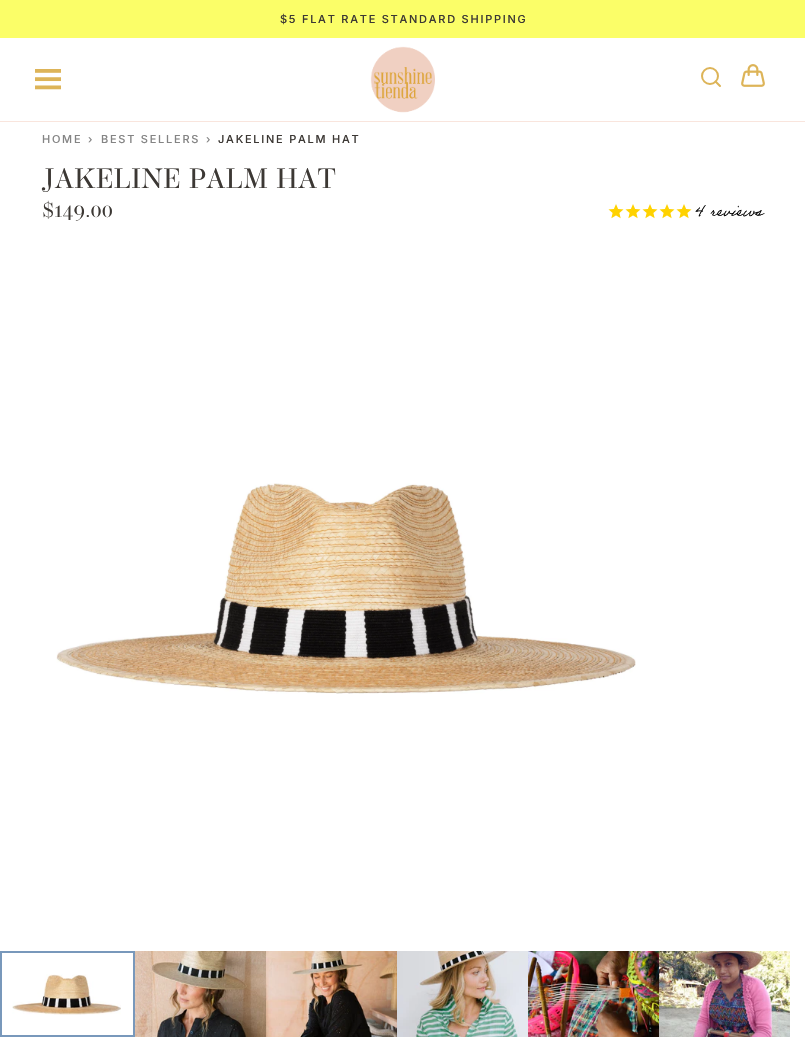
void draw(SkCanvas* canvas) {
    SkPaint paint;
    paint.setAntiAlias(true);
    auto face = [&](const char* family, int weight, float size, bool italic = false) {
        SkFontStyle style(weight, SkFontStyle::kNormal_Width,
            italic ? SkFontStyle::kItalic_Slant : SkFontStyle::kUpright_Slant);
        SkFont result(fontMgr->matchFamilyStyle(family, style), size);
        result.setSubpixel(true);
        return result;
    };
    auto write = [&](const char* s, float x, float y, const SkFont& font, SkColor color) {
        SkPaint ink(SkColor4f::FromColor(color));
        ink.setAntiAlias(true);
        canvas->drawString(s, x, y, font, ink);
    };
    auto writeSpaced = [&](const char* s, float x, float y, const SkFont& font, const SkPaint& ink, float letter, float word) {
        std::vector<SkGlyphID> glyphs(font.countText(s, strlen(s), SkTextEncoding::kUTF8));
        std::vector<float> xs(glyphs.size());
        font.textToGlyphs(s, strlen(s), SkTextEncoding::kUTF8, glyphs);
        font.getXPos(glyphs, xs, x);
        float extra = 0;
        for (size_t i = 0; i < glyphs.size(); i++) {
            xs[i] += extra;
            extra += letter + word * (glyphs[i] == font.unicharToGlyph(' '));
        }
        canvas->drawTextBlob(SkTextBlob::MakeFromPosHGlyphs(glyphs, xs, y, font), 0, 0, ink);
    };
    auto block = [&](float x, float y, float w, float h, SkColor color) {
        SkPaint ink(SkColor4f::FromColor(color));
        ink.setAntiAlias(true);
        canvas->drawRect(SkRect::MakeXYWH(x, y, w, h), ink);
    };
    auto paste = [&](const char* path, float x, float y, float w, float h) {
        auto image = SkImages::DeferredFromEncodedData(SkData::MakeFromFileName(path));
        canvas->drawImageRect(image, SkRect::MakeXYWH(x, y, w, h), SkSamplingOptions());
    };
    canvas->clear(SkColorSetRGB(251, 254, 104));
    canvas->save();
    canvas->clipRect(SkRect::MakeXYWH(280, 8, 245, 22));
    auto kFont1 = face("Inter", 500, 11);
    paint.setColor(SkColorSetRGB(60, 56, 52));
    writeSpaced("$5 FLAT RATE STANDARD SHIPPING", 280, 23, kFont1, paint, 1.75f, 0);
    canvas->restore();
    block(0, 38, 805, 1025, SK_ColorWHITE);
    block(0, 121, 805, 1, SkColorSetRGB(249, 229, 221));
    paste("pic1.png", 35, 69, 26, 21);
    paste("pic2.png", 370, 46, 65, 67);
    paint.setStyle(SkPaint::kStroke_Style);
    paint.setStrokeWidth(2);
    paint.setStrokeCap(SkPaint::kRound_Cap);
    paint.setStrokeJoin(SkPaint::kRound_Join);
    paint.setColor(SkColorSetRGB(221, 180, 88));
    canvas->drawPath(SkPathBuilder().moveTo(720, 86).lineTo(715.5f, 81.5f).detach(), paint);
    paint.setStrokeCap(SkPaint::kButt_Cap);
    paint.setStrokeJoin(SkPaint::kMiter_Join);
    canvas->drawCircle(710, 76, 8, paint);
    paste("pic3.png", 741, 64, 24, 23);
    paint.setStyle(SkPaint::kFill_Style);
    paint.setColor(SkColorSetRGB(132, 132, 132));
    writeSpaced("HOME", 42, 143, kFont1, paint, 1.75f, 0);
    writeSpaced("›", 88, 143, kFont1, paint, 1.75f, 0);
    writeSpaced("BEST SELLERS", 101, 143, kFont1, paint, 1.75f, 0);
    writeSpaced("›", 206, 143, kFont1, paint, 1.75f, 0);
    paint.setColor(SkColorSetRGB(60, 56, 52));
    writeSpaced("JAKELINE PALM HAT", 218, 143, kFont1, paint, 1.75f, 0);
    auto kFont2 = face("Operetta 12", 400, 28);
    write("JAKELINE PALM HAT", 42, 188, kFont2, SkColorSetRGB(60, 56, 52));
    auto kFont3 = face("Operetta 12", 400, 22);
    write("$149.00", 42, 217, kFont3, SkColorSetRGB(60, 56, 52));
    paste("pic4.png", 608, 204, 16, 15);
    paste("pic4.png", 625, 204, 16, 15);
    paste("pic4.png", 642, 204, 16, 15);
    paste("pic4.png", 659, 204, 16, 15);
    paste("pic4.png", 676, 204, 16, 15);
    auto kFont4 = face("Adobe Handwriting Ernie", 400, 16);
    write("4 reviews", 695, 216, kFont4, SK_ColorBLACK);
    paste("pic5.png", 56, 483, 580, 211);
    paste("pic6.png", 12, 974, 109, 41);
    paint.setStyle(SkPaint::kStroke_Style);
    paint.setColor(SkColorSetRGB(120, 152, 187));
    canvas->drawRect(SkRect::MakeXYWH(1, 952, 133, 84), paint);
    paste("pic7.png", 135, 951, 131, 86);
    paste("pic8.png", 266, 951, 131, 86);
    paste("pic9.png", 397, 951, 131, 86);
    paste("pic10.png", 528, 951, 131, 86);
    paste("pic11.png", 659, 951, 131, 86);
}
